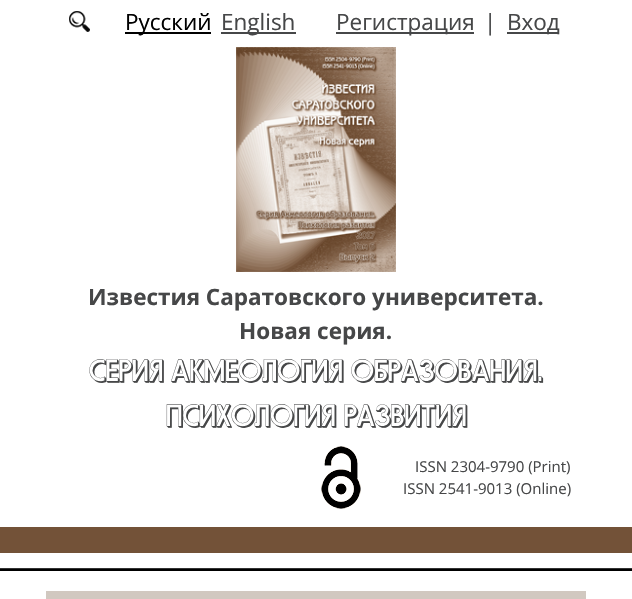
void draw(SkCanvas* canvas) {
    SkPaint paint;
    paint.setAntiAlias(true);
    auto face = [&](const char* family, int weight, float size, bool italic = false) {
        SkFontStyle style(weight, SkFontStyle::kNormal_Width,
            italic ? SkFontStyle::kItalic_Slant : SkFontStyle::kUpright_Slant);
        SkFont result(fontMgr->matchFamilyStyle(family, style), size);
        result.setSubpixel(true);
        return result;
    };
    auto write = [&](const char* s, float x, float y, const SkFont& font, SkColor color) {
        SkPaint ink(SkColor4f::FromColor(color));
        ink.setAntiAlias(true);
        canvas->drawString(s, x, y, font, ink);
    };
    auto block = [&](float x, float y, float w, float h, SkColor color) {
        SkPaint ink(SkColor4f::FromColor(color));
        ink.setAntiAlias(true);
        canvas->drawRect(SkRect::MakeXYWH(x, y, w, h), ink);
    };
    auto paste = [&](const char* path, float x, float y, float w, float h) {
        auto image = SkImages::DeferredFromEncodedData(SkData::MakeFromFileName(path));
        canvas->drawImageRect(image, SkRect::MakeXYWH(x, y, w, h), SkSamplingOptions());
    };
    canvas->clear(SK_ColorWHITE);
    paste("pic1.png", 69, 11, 21, 21);
    block(125, 32, 86, 2, SK_ColorBLACK);
    auto kFont1 = face("Open Sans", 400, 22.5f);
    write("Русский", 125, 30, kFont1, SK_ColorBLACK);
    block(221, 32, 75, 2, SkColorSetRGB(70, 71, 72));
    write("English", 221, 30, kFont1, SkColorSetRGB(70, 71, 72));
    block(336, 32, 138, 2, SkColorSetRGB(70, 71, 72));
    write("Регистрация", 336, 30, kFont1, SkColorSetRGB(70, 71, 72));
    write("|", 484, 30, kFont1, SkColorSetRGB(70, 71, 72));
    block(507, 32, 52, 2, SkColorSetRGB(70, 71, 72));
    write("Вход", 507, 30, kFont1, SkColorSetRGB(70, 71, 72));
    paste("pic2.png", 236, 47, 160, 225);
    auto kFont2 = face("Open Sans", 700, 22.5f);
    write("Известия Саратовского университета.", 88, 305, kFont2, SkColorSetRGB(70, 71, 72));
    write("Новая серия.", 239, 339, kFont2, SkColorSetRGB(70, 71, 72));
    auto kFont3 = face("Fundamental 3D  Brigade", 400, 30);
    write("СЕРИЯ АКМЕОЛОГИЯ ОБРАЗОВАНИЯ.", 89, 381, kFont3, SkColorSetRGB(70, 71, 72));
    write("ПСИХОЛОГИЯ РАЗВИТИЯ", 166, 426, kFont3, SkColorSetRGB(70, 71, 72));
    paste("pic3.png", 321, 446, 40, 63);
    auto kFont4 = face("Open Sans", 400, 15);
    write("ISSN 2304-9790 (Print)", 415, 472, kFont4, SkColorSetRGB(70, 71, 72));
    write("ISSN 2541-9013 (Online)", 403, 494, kFont4, SkColorSetRGB(70, 71, 72));
    block(0, 527, 632, 26, SkColorSetRGB(115, 82, 56));
    block(0, 568, 632, 1, SkColorSetRGB(51, 51, 51));
    block(0, 569, 632, 2, SK_ColorBLACK);
    block(46, 591, 540, 8, SkColorSetRGB(209, 200, 192));
}
